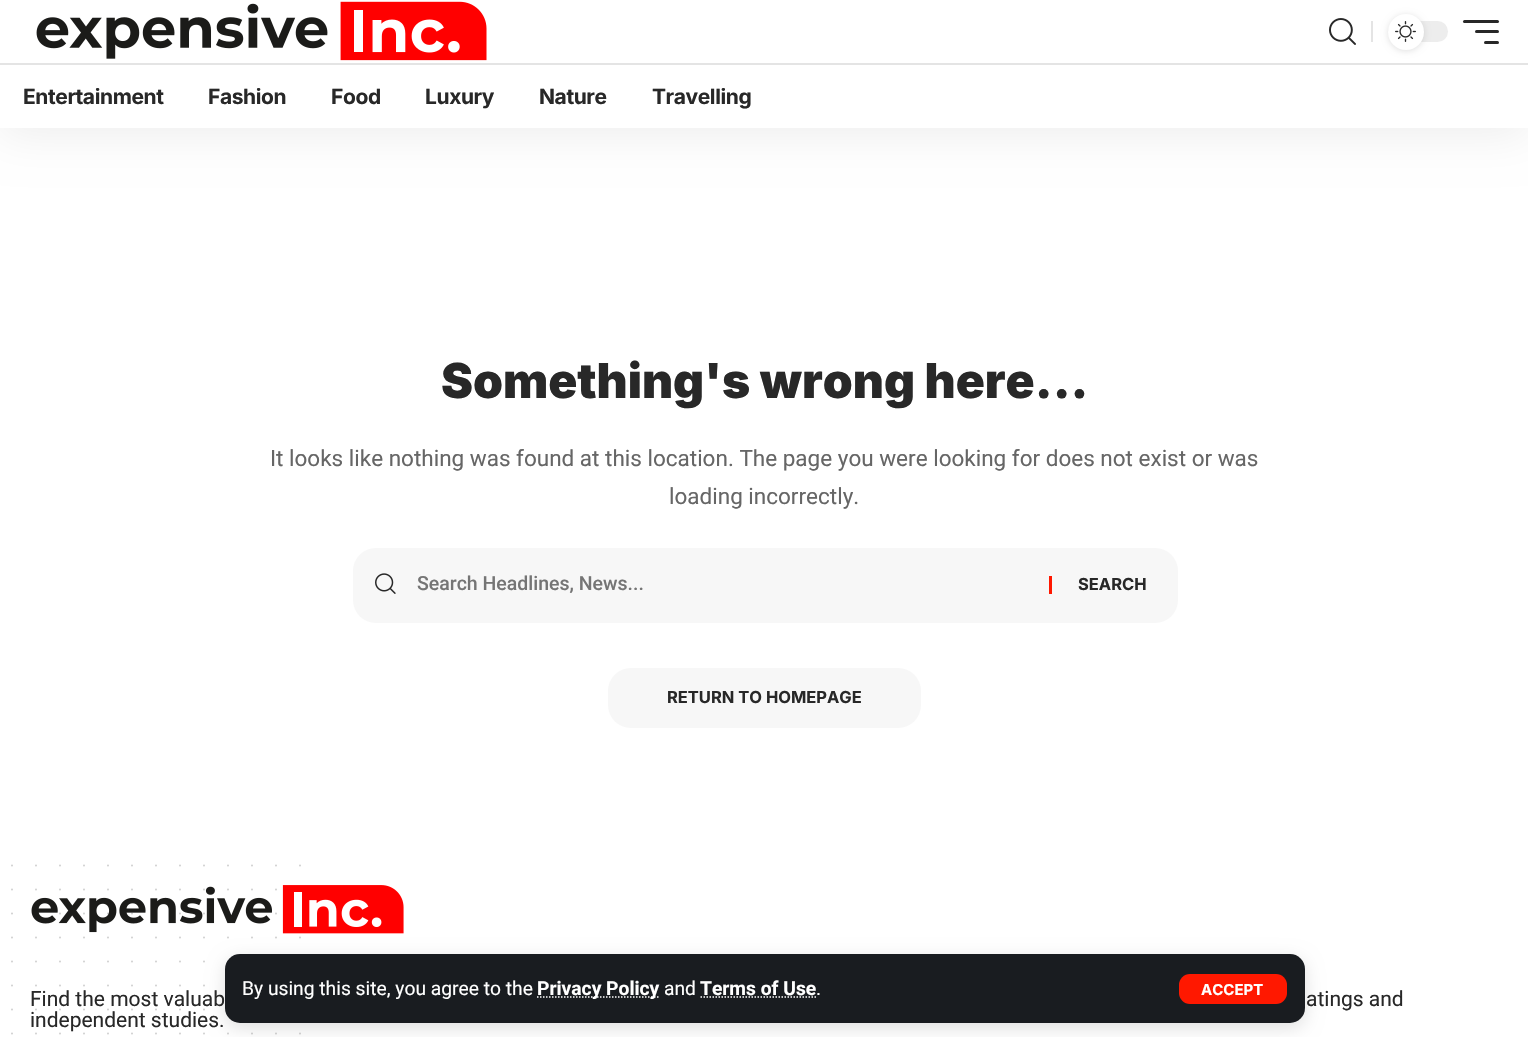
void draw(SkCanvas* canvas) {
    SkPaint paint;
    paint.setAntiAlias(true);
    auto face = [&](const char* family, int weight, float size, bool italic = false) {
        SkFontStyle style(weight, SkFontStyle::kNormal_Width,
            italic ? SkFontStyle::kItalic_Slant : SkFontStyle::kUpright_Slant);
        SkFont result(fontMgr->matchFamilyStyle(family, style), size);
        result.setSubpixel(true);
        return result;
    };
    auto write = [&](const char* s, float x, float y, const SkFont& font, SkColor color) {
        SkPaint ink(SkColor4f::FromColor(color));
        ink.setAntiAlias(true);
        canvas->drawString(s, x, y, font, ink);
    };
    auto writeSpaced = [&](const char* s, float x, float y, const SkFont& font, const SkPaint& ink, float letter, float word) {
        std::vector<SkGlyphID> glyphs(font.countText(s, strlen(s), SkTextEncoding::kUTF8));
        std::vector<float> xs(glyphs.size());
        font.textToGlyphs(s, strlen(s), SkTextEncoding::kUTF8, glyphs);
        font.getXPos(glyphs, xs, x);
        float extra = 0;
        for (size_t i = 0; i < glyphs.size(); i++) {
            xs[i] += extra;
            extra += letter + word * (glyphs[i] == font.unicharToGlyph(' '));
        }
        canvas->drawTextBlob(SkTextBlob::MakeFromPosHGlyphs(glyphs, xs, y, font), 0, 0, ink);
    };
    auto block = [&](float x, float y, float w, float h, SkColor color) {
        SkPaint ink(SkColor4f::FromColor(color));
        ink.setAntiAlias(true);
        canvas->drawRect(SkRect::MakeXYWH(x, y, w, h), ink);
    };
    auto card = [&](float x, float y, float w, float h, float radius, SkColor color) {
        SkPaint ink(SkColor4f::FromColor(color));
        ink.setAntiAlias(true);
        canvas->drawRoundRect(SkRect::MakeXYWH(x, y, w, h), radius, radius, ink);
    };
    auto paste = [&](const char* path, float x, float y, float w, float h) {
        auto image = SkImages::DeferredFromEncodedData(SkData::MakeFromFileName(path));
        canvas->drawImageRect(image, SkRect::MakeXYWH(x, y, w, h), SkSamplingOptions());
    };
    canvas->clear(SK_ColorWHITE);
    paint.setColor(SkColorSetARGB(18, 0, 0, 0));
    paint.setMaskFilter(SkMaskFilter::MakeBlur(kNormal_SkBlurStyle, 22.5f));
    canvas->drawRect(SkRect::MakeXYWH(0, 6, 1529, 128), paint);
    paint.setMaskFilter(nullptr);
    block(0, 0, 1528, 128, SK_ColorWHITE);
    paste("pic1.png", 36, 1, 451, 60);
    paste("pic2.png", 1329, 18, 27, 27);
    block(1371, 21, 2, 21, SkColorSetRGB(228, 228, 228));
    card(1388, 21, 60, 21, 10.5f, SkColorSetRGB(237, 237, 237));
    paint.setColor(SkColorSetARGB(31, 0, 0, 0));
    paint.setMaskFilter(SkMaskFilter::MakeBlur(kNormal_SkBlurStyle, 3));
    canvas->drawRoundRect(SkRect::MakeXYWH(1388, 15, 36, 36), 18, 18, paint);
    paint.setMaskFilter(nullptr);
    paint.setColor(SK_ColorWHITE);
    canvas->drawCircle(1406, 32, 18, paint);
    paste("pic3.png", 1395, 21, 21, 21);
    card(1463, 20, 36, 3, 1.5f, SkColorSetRGB(40, 40, 40));
    card(1475, 30, 24, 3, 1.5f, SkColorSetRGB(40, 40, 40));
    card(1484, 41, 15, 3, 1.5f, SkColorSetRGB(40, 40, 40));
    block(0, 63, 1528, 2, SkColorSetRGB(228, 228, 228));
    auto kFont1 = face("Inter", 700, 21);
    paint.setColor(SkColorSetRGB(40, 40, 40));
    writeSpaced("Entertainment", 23, 104, kFont1, paint, -0.4f, 0);
    writeSpaced("Fashion", 208, 104, kFont1, paint, -0.4f, 0);
    writeSpaced("Food", 331, 104, kFont1, paint, -0.4f, 0);
    writeSpaced("Luxury", 425, 104, kFont1, paint, -0.4f, 0);
    writeSpaced("Nature", 539, 104, kFont1, paint, -0.4f, 0);
    writeSpaced("Travelling", 652, 104, kFont1, paint, -0.4f, 0);
    paint.setStyle(SkPaint::kStroke_Style);
    paint.setStrokeWidth(2.2f);
    paint.setStrokeCap(SkPaint::kRound_Cap);
    paint.setColor(SkColorSetRGB(212, 212, 212));
    paint.setPathEffect(SkDashPathEffect::Make({{0, 24}}, 0));
    canvas->drawPath(SkPathBuilder().moveTo(12, 937.5f).lineTo(300.3f, 937.5f).detach(), paint);
    paint.setPathEffect(nullptr);
    paint.setPathEffect(SkDashPathEffect::Make({{0, 24}}, 0));
    canvas->drawPath(SkPathBuilder().moveTo(12, 961.5f).lineTo(300.3f, 961.5f).detach(), paint);
    paint.setPathEffect(nullptr);
    paint.setPathEffect(SkDashPathEffect::Make({{0, 24}}, 0));
    canvas->drawPath(SkPathBuilder().moveTo(12, 985.5f).lineTo(300.3f, 985.5f).detach(), paint);
    paint.setPathEffect(nullptr);
    paint.setPathEffect(SkDashPathEffect::Make({{0, 24}}, 0));
    canvas->drawPath(SkPathBuilder().moveTo(12, 1009.5f).lineTo(300.3f, 1009.5f).detach(), paint);
    paint.setPathEffect(nullptr);
    paint.setPathEffect(SkDashPathEffect::Make({{0, 24}}, 0));
    canvas->drawPath(SkPathBuilder().moveTo(12, 1033.5f).lineTo(300.3f, 1033.5f).detach(), paint);
    paint.setPathEffect(nullptr);
    paint.setPathEffect(SkDashPathEffect::Make({{0, 24}}, 0));
    canvas->drawPath(SkPathBuilder().moveTo(12, 889.5f).lineTo(300.3f, 889.5f).detach(), paint);
    paint.setPathEffect(nullptr);
    paint.setPathEffect(SkDashPathEffect::Make({{0, 24}}, 0));
    canvas->drawPath(SkPathBuilder().moveTo(12, 913.5f).lineTo(300.3f, 913.5f).detach(), paint);
    paint.setPathEffect(nullptr);
    paste("pic5.png", 31, 885, 373, 49);
    paint.setStyle(SkPaint::kFill_Style);
    paint.setColor(SkColorSetARGB(31, 0, 0, 0));
    paint.setMaskFilter(SkMaskFilter::MakeBlur(kNormal_SkBlurStyle, 9));
    canvas->drawRoundRect(SkRect::MakeXYWH(225, 959, 1080, 69), 15, 15, paint);
    paint.setMaskFilter(nullptr);
    card(225, 954, 1080, 69, 15, SkColorSetRGB(25, 28, 32));
    auto kFont2 = face("Roboto", 400, 19.25f);
    write("By using this site, you agree to the", 242, 995, kFont2, SK_ColorWHITE);
    paint.setStyle(SkPaint::kStroke_Style);
    paint.setStrokeWidth(1.5f);
    paint.setStrokeCap(SkPaint::kButt_Cap);
    paint.setColor(SK_ColorWHITE);
    paint.setPathEffect(SkDashPathEffect::Make({{1.5f, 1.5f}}, 0));
    canvas->drawPath(SkPathBuilder().moveTo(537, 997).lineTo(659, 997).detach(), paint);
    paint.setPathEffect(nullptr);
    auto kFont3 = face("Roboto", 700, 19.25f);
    write("Privacy Policy", 537, 995, kFont3, SK_ColorWHITE);
    write("and", 664, 995, kFont2, SK_ColorWHITE);
    write("Terms of Use", 700, 995, kFont3, SK_ColorWHITE);
    paint.setPathEffect(SkDashPathEffect::Make({{1.5f, 1.5f}}, 0));
    canvas->drawPath(SkPathBuilder().moveTo(700.5f, 997).lineTo(816.5f, 997).detach(), paint);
    paint.setPathEffect(nullptr);
    write(".", 816, 995, kFont2, SK_ColorWHITE);
    card(1179, 974, 108, 30, 11, SkColorSetRGB(255, 24, 0));
    auto kFont4 = face("Inter", 700, 15);
    write("ACCEPT", 1201, 995, kFont4, SK_ColorWHITE);
    auto kFont5 = face("Inter", 900, 48);
    write("Something's wrong here...", 441, 398, kFont5, SkColorSetRGB(40, 40, 40));
    auto kFont6 = face("Roboto", 400, 22.5f);
    write("It looks like nothing was found at this location. The page you were looking for does not exist or was", 270, 466, kFont6, SkColorSetRGB(102, 102, 102));
    write("loading incorrectly.", 669, 504, kFont6, SkColorSetRGB(102, 102, 102));
    card(353, 548, 825, 75, 23, SkColorSetRGB(247, 247, 247));
    paste("pic4.png", 375, 573, 21, 21);
    auto kFont7 = face("Roboto", 500, 19.5f);
    write("Search Headlines, News...", 417, 590, kFont7, SkColorSetRGB(117, 117, 117));
    block(1049, 576, 3, 18, SkColorSetRGB(255, 24, 0));
    auto kFont8 = face("Inter", 700, 16.5f);
    write("SEARCH", 1078, 590, kFont8, SkColorSetRGB(40, 40, 40));
    card(608, 668, 313, 60, 23, SkColorSetRGB(247, 247, 247));
    write("RETURN TO HOMEPAGE", 667, 703, kFont8, SkColorSetRGB(40, 40, 40));
    paint.setStrokeWidth(2.2f);
    paint.setStrokeCap(SkPaint::kRound_Cap);
    paint.setColor(SkColorSetRGB(212, 212, 212));
    paint.setPathEffect(SkDashPathEffect::Make({{0, 24}}, 0));
    canvas->drawPath(SkPathBuilder().moveTo(12, 865.5f).lineTo(300.3f, 865.5f).detach(), paint);
    paint.setPathEffect(nullptr);
    auto kFont9 = face("Roboto", 400, 21);
    write("Find the most valuab", 30, 1006, kFont9, SkColorSetRGB(40, 40, 40));
    write("atings and", 1306, 1006, kFont9, SkColorSetRGB(40, 40, 40));
    write("independent studies.", 30, 1027, kFont9, SkColorSetRGB(40, 40, 40));
}
